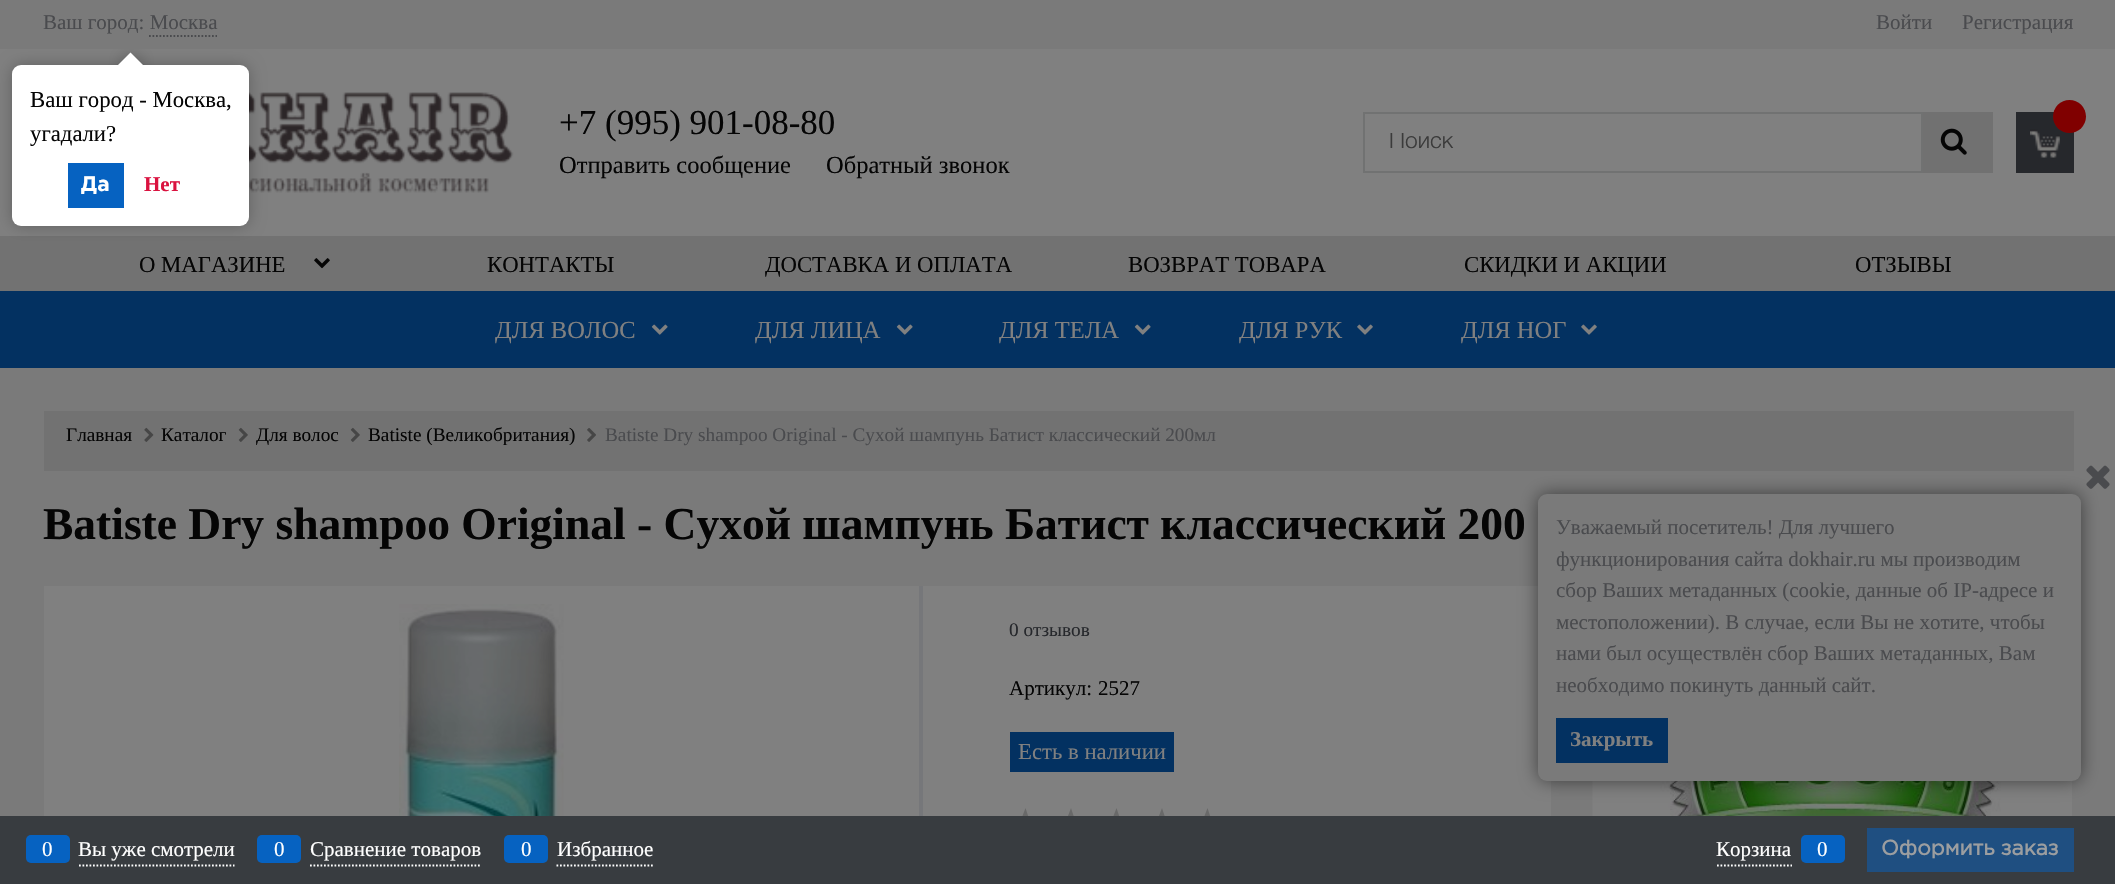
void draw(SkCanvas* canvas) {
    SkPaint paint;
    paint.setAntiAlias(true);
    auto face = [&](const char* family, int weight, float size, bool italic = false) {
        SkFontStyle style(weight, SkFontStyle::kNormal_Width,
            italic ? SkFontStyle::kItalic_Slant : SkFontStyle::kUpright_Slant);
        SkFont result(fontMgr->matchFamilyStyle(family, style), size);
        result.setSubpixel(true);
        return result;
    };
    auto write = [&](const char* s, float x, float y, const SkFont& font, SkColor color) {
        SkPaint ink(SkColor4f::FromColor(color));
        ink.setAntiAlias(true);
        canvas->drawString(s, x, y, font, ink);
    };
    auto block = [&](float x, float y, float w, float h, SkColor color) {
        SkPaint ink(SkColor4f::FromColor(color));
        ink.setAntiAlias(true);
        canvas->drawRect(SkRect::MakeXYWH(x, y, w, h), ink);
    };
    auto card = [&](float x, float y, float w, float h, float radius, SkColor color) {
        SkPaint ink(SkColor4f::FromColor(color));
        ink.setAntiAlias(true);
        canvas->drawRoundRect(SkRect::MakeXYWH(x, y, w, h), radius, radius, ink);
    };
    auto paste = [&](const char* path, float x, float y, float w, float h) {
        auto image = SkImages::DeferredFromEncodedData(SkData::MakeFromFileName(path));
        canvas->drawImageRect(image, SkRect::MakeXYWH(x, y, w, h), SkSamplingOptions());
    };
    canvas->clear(SkColorSetRGB(128, 128, 128));
    block(0, 0, 2115, 49, SkColorSetRGB(122, 122, 122));
    auto kFont1 = face("Liberation Serif", 400, 21);
    write("Ваш город: Москва", 43, 29, kFont1, SkColorSetRGB(74, 75, 78));
    paint.setStyle(SkPaint::kStroke_Style);
    paint.setStrokeWidth(1.8f);
    paint.setColor(SkColorSetRGB(74, 75, 78));
    paint.setPathEffect(SkDashPathEffect::Make({{1.75f, 1.75f}}, 0));
    canvas->drawPath(SkPathBuilder().moveTo(149, 36).lineTo(217, 36).detach(), paint);
    paint.setPathEffect(nullptr);
    write("Войти", 1876, 29, kFont1, SkColorSetRGB(74, 75, 78));
    write("Регистрация", 1962, 29, kFont1, SkColorSetRGB(74, 75, 78));
    paste("pic1.png", 249, 92, 265, 101);
    auto kFont2 = face("Liberation Serif", 400, 35);
    write("+7 (995) 901-08-80", 559, 134, kFont2, SkColorSetRGB(5, 5, 5));
    auto kFont3 = face("Liberation Serif", 400, 24.5f);
    write("Отправить сообщение", 559, 173, kFont3, SkColorSetRGB(5, 5, 5));
    write("Обратный звонок", 826, 173, kFont3, SkColorSetRGB(5, 5, 5));
    paint.setStrokeWidth(2);
    paint.setColor(SkColorSetRGB(113, 114, 114));
    canvas->drawRect(SkRect::MakeXYWH(1364, 113, 558, 59), paint);
    canvas->save();
    canvas->clipRect(SkRect::MakeXYWH(1390, 133, 505, 21));
    auto kFont4 = face("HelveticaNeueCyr", 300, 22.75f);
    write("Поиск", 1389, 148, kFont4, SkColorSetRGB(59, 59, 59));
    canvas->restore();
    block(1923, 112, 70, 61, SkColorSetRGB(113, 113, 113));
    paste("pic2.png", 1940, 128, 27, 27);
    block(2016, 112, 58, 61, SkColorSetRGB(38, 40, 44));
    paste("pic3.png", 2030, 129, 30, 29);
    paint.setStyle(SkPaint::kFill_Style);
    paint.setColor(SkColorSetRGB(128, 0, 0));
    canvas->drawCircle(2069.5f, 116.5f, 16.5f, paint);
    block(0, 236, 2115, 55, SkColorSetRGB(114, 114, 114));
    auto kFont5 = face("Liberation Serif", 400, 22.75f);
    write("О МАГАЗИНЕ", 139, 272, kFont5, SkColorSetRGB(5, 5, 5));
    paste("pic4.png", 314, 258, 16, 11);
    write("КОНТАКТЫ", 487, 272, kFont5, SkColorSetRGB(5, 5, 5));
    write("ДОСТАВКА И ОПЛАТА", 765, 272, kFont5, SkColorSetRGB(5, 5, 5));
    write("ВОЗВРАТ ТОВАРА", 1128, 272, kFont5, SkColorSetRGB(5, 5, 5));
    write("СКИДКИ И АКЦИИ", 1464, 272, kFont5, SkColorSetRGB(5, 5, 5));
    write("ОТЗЫВЫ", 1855, 272, kFont5, SkColorSetRGB(5, 5, 5));
    block(0, 368, 2115, 448, SkColorSetRGB(122, 122, 122));
    block(0, 291, 2115, 77, SkColorSetRGB(3, 49, 97));
    write("ДЛЯ ВОЛОС", 495, 338, kFont3, SkColorSetRGB(128, 128, 128));
    paste("pic5.png", 651, 324, 17, 11);
    write("ДЛЯ ЛИЦА", 755, 338, kFont3, SkColorSetRGB(128, 128, 128));
    paste("pic5.png", 896, 324, 17, 11);
    write("ДЛЯ ТЕЛА", 999, 338, kFont3, SkColorSetRGB(128, 128, 128));
    paste("pic5.png", 1134, 324, 17, 11);
    write("ДЛЯ РУК", 1239, 338, kFont3, SkColorSetRGB(128, 128, 128));
    paste("pic6.png", 1357, 324, 16, 11);
    write("ДЛЯ НОГ", 1461, 338, kFont3, SkColorSetRGB(128, 128, 128));
    paste("pic6.png", 1581, 324, 16, 11);
    block(44, 411, 2030, 60, SkColorSetRGB(114, 114, 114));
    auto kFont6 = face("Liberation Serif", 400, 19.25f);
    write("Главная", 66, 441, kFont6, SkColorSetRGB(5, 5, 5));
    paste("pic7.png", 144, 427, 10, 15);
    write("Каталог", 161, 441, kFont6, SkColorSetRGB(5, 5, 5));
    paste("pic8.png", 238, 427, 10, 15);
    write("Для волос", 256, 441, kFont6, SkColorSetRGB(5, 5, 5));
    paste("pic8.png", 350, 427, 10, 15);
    write("Batiste (Великобритания)", 368, 441, kFont6, SkColorSetRGB(5, 5, 5));
    paste("pic9.png", 587, 428, 9, 14);
    write("Batiste Dry shampoo Original - Сухой шампунь Батист классический 200мл", 605, 441, kFont6, SkColorSetRGB(74, 75, 78));
    auto kFont7 = face("Liberation Serif", 700, 45.5f);
    write("Batiste Dry shampoo Original - Сухой шампунь Батист классический 200", 43, 539, kFont7, SkColorSetRGB(5, 5, 5));
    block(44, 586, 1507, 230, SkColorSetRGB(128, 128, 128));
    block(919, 586, 4, 230, SkColorSetRGB(118, 119, 122));
    paste("pic10.png", 399, 604, 165, 212);
    write("0 отзывов", 1009, 636, kFont6, SkColorSetRGB(38, 40, 44));
    write("Артикул:", 1009, 695, kFont1, SkColorSetRGB(5, 5, 5));
    write("2527", 1098, 695, kFont1, SkColorSetRGB(5, 5, 5));
    block(1010, 732, 164, 40, SkColorSetRGB(3, 49, 97));
    write("Есть в наличии", 1018, 759, kFont5, SkColorSetRGB(128, 128, 128));
    paint.setColor(SkColorSetRGB(105, 105, 105));
    canvas->drawPath(SkPathBuilder().moveTo(1025.5f, 808).lineTo(1029, 818.5f).lineTo(1039, 818.5f).lineTo(1031, 825).lineTo(1034, 836).lineTo(1025.5f, 829.5f).lineTo(1017, 836).lineTo(1020, 825).lineTo(1011.5f, 818.5f).lineTo(1021.5f, 818.5f).close().detach(), paint);
    canvas->drawPath(SkPathBuilder().moveTo(1071, 808).lineTo(1074.5f, 818.5f).lineTo(1084.5f, 818.5f).lineTo(1076.5f, 825).lineTo(1079.5f, 836).lineTo(1071, 829.5f).lineTo(1062.5f, 836).lineTo(1065.5f, 825).lineTo(1057, 818.5f).lineTo(1067, 818.5f).close().detach(), paint);
    canvas->drawPath(SkPathBuilder().moveTo(1116.5f, 808).lineTo(1120, 818.5f).lineTo(1130, 818.5f).lineTo(1122, 825).lineTo(1125, 836).lineTo(1116.5f, 829.5f).lineTo(1108, 836).lineTo(1111, 825).lineTo(1102.5f, 818.5f).lineTo(1112.5f, 818.5f).close().detach(), paint);
    canvas->drawPath(SkPathBuilder().moveTo(1162, 808).lineTo(1165.5f, 818.5f).lineTo(1175.5f, 818.5f).lineTo(1167.5f, 825).lineTo(1170.5f, 836).lineTo(1162, 829.5f).lineTo(1153.5f, 836).lineTo(1156.5f, 825).lineTo(1148, 818.5f).lineTo(1158, 818.5f).close().detach(), paint);
    canvas->drawPath(SkPathBuilder().moveTo(1207.5f, 808).lineTo(1211, 818.5f).lineTo(1221, 818.5f).lineTo(1213, 825).lineTo(1216, 836).lineTo(1207.5f, 829.5f).lineTo(1199, 836).lineTo(1202, 825).lineTo(1193.5f, 818.5f).lineTo(1203.5f, 818.5f).close().detach(), paint);
    paste("pic11.png", 1592, 781, 480, 35);
    block(0, 816, 2115, 68, SkColorSetRGB(56, 60, 64));
    paint.setStyle(SkPaint::kStroke_Style);
    paint.setStrokeWidth(1.8f);
    paint.setColor(SK_ColorWHITE);
    paint.setPathEffect(SkDashPathEffect::Make({{1.75f, 1.75f}}, 0));
    canvas->drawPath(SkPathBuilder().moveTo(79, 865.5f).lineTo(234.5f, 865.5f).detach(), paint);
    paint.setPathEffect(nullptr);
    card(26, 835, 44, 28, 5, SkColorSetRGB(6, 98, 193));
    write("0", 42, 856, kFont1, SK_ColorWHITE);
    write("Вы уже смотрели", 78, 856, kFont1, SK_ColorWHITE);
    paint.setPathEffect(SkDashPathEffect::Make({{1.75f, 1.75f}}, 0));
    canvas->drawPath(SkPathBuilder().moveTo(310, 865.5f).lineTo(481, 865.5f).detach(), paint);
    paint.setPathEffect(nullptr);
    card(257, 835, 44, 28, 5, SkColorSetRGB(6, 98, 193));
    write("0", 274, 856, kFont1, SK_ColorWHITE);
    write("Сравнение товаров", 310, 856, kFont1, SK_ColorWHITE);
    paint.setPathEffect(SkDashPathEffect::Make({{1.75f, 1.75f}}, 0));
    canvas->drawPath(SkPathBuilder().moveTo(556.5f, 865.5f).lineTo(653, 865.5f).detach(), paint);
    paint.setPathEffect(nullptr);
    card(504, 835, 44, 28, 5, SkColorSetRGB(6, 98, 193));
    write("0", 521, 856, kFont1, SK_ColorWHITE);
    write("Избранное", 557, 856, kFont1, SK_ColorWHITE);
    paint.setPathEffect(SkDashPathEffect::Make({{1.75f, 1.75f}}, 0));
    canvas->drawPath(SkPathBuilder().moveTo(1717, 865.5f).lineTo(1792, 865.5f).detach(), paint);
    paint.setPathEffect(nullptr);
    write("Корзина", 1716, 856, kFont1, SK_ColorWHITE);
    card(1801, 835, 44, 28, 5, SkColorSetRGB(6, 98, 193));
    write("0", 1817, 856, kFont1, SK_ColorWHITE);
    block(1867, 828, 207, 44, SkColorSetRGB(31, 79, 129));
    auto kFont8 = face("Gotham", 700, 21);
    write("Оформить заказ", 1881, 855, kFont8, SkColorSetRGB(156, 158, 160));
    paint.setStyle(SkPaint::kFill_Style);
    paint.setColor(SkColorSetARGB(64, 0, 0, 0));
    paint.setMaskFilter(SkMaskFilter::MakeBlur(kNormal_SkBlurStyle, 8));
    canvas->drawRoundRect(SkRect::MakeXYWH(12, 65, 237, 161), 9, 9, paint);
    paint.setMaskFilter(nullptr);
    card(12, 65, 237, 161, 9, SK_ColorWHITE);
    canvas->save();
    canvas->clipRect(SkRect::MakeXYWH(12, 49, 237, 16));
    paint.setMaskFilter(SkMaskFilter::MakeBlur(kNormal_SkBlurStyle, 8));
    canvas->drawRect(SkRect::MakeXYWH(123, 56, 17, 18), paint);
    paint.setMaskFilter(nullptr);
    canvas->restore();
    canvas->save();
    canvas->clipRect(SkRect::MakeXYWH(12, 49, 237, 16));
    paint.setColor(SK_ColorWHITE);
    canvas->drawPath(SkPathBuilder().moveTo(130.5f, 52.5f).lineTo(143, 65).lineTo(130.5f, 77).lineTo(118, 65).close().detach(), paint);
    canvas->restore();
    write("Ваш город - Москва,", 30, 107, kFont5, SkColorSetRGB(5, 5, 5));
    write("угадали?", 30, 141, kFont5, SkColorSetRGB(5, 5, 5));
    block(68, 163, 56, 45, SkColorSetRGB(6, 98, 193));
    auto kFont9 = face("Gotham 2", 700, 21);
    write("Да", 81, 191, kFont9, SK_ColorWHITE);
    auto kFont10 = face("Liberation Serif", 700, 21);
    write("Нет", 144, 191, kFont10, SkColorSetRGB(218, 18, 63));
    paint.setColor(SkColorSetARGB(128, 0, 0, 0));
    paint.setMaskFilter(SkMaskFilter::MakeBlur(kNormal_SkBlurStyle, 9));
    canvas->drawRoundRect(SkRect::MakeXYWH(1538, 494, 543, 287), 9, 9, paint);
    paint.setMaskFilter(nullptr);
    card(1538, 494, 543, 287, 9, SkColorSetRGB(122, 122, 122));
    paste("pic12.png", 2086, 465, 24, 24);
    write("Уважаемый посетитель! Для лучшего", 1556, 534, kFont1, SkColorSetRGB(74, 75, 78));
    write("функционирования сайта dokhair.ru мы производим", 1556, 566, kFont1, SkColorSetRGB(74, 75, 78));
    write("сбор Ваших метаданных (cookie, данные об IP-адресе и", 1556, 597, kFont1, SkColorSetRGB(74, 75, 78));
    write("местоположении). В случае, если Вы не хотите, чтобы", 1556, 629, kFont1, SkColorSetRGB(74, 75, 78));
    write("нами был осуществлён сбор Ваших метаданных, Вам", 1556, 660, kFont1, SkColorSetRGB(74, 75, 78));
    write("необходимо покинуть данный сайт.", 1556, 692, kFont1, SkColorSetRGB(74, 75, 78));
    block(1556, 718, 112, 45, SkColorSetRGB(3, 49, 97));
    write("Закрыть", 1570, 746, kFont10, SkColorSetRGB(128, 128, 128));
}
